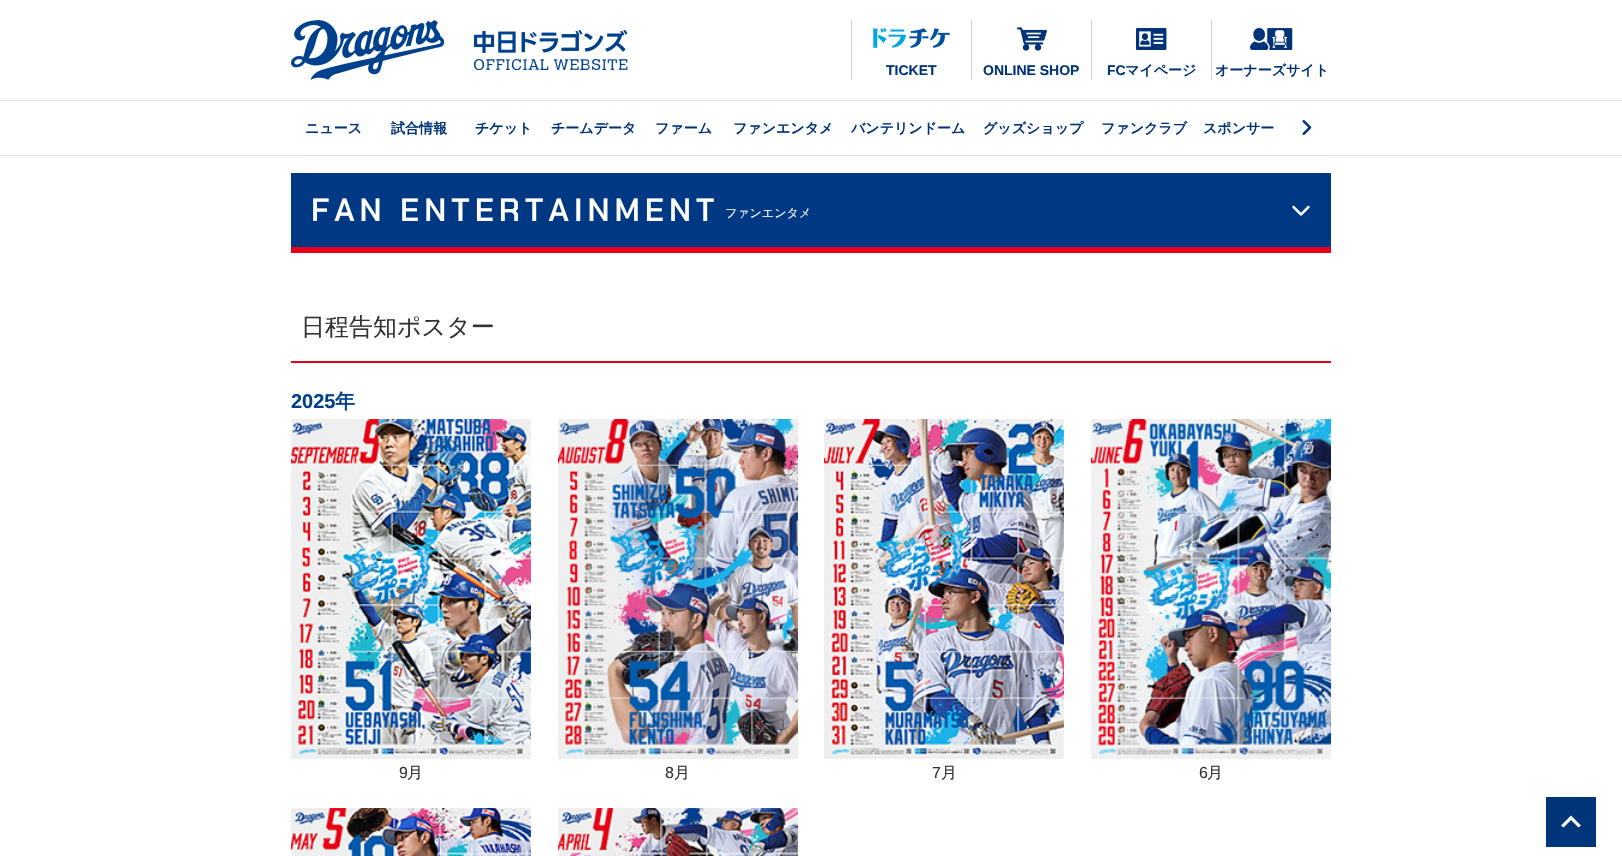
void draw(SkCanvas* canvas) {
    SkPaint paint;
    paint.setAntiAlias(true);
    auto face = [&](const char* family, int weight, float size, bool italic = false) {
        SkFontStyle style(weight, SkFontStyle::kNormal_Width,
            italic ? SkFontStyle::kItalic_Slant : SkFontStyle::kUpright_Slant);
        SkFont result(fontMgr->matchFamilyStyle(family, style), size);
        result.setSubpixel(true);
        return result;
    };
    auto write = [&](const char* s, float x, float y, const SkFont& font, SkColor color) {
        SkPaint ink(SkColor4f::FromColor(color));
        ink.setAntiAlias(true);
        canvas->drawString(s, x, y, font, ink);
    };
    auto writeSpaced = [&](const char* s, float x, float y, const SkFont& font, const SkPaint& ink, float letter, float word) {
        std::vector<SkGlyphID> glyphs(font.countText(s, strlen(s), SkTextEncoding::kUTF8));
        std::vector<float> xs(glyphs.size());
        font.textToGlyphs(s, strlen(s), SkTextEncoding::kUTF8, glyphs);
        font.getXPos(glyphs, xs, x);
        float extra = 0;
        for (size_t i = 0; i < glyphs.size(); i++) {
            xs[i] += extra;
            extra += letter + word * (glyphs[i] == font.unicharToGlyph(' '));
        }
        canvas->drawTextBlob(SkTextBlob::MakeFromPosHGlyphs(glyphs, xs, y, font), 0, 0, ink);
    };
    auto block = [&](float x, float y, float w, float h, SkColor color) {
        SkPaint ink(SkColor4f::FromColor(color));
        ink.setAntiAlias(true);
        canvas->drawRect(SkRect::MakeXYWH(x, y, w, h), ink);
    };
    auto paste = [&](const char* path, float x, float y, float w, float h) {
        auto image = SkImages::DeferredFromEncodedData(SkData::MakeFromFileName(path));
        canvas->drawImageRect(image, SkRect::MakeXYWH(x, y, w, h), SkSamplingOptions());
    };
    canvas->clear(SK_ColorWHITE);
    paste("pic1.png", 291, 20, 153, 60);
    paste("pic2.png", 474, 30, 154, 40);
    block(851, 20, 1, 60, SkColorSetRGB(208, 208, 208));
    paste("pic3.png", 873, 28, 77, 20);
    auto kFont1 = face("Liberation Sans", 700, 14);
    write("TICKET", 886, 75, kFont1, SkColorSetRGB(0, 51, 119));
    block(971, 20, 1, 60, SkColorSetRGB(208, 208, 208));
    paste("pic4.png", 1017, 27, 30, 24);
    write("ONLINE SHOP", 983, 75, kFont1, SkColorSetRGB(0, 51, 119));
    block(1091, 20, 1, 60, SkColorSetRGB(208, 208, 208));
    paste("pic5.png", 1136, 28, 31, 22);
    write("FC", 1107, 75, kFont1, SkColorSetRGB(0, 51, 119));
    auto kFont2 = face("WenQuanYi Zen Hei", 700, 14);
    write("マイページ", 1125, 75, kFont2, SkColorSetRGB(0, 51, 119));
    block(1211, 20, 1, 60, SkColorSetRGB(208, 208, 208));
    paste("pic6.png", 1250, 28, 43, 22);
    write("オーナーズサイト", 1215, 75, kFont2, SkColorSetRGB(0, 51, 119));
    block(0, 100, 1622, 1, SkColorSetRGB(230, 230, 230));
    block(0, 155, 1622, 1, SkColorSetRGB(230, 230, 230));
    write("ニュース", 305, 133, kFont2, SkColorSetRGB(0, 51, 119));
    write("試合情報", 391, 133, kFont2, SkColorSetRGB(0, 51, 119));
    write("チケット", 475, 133, kFont2, SkColorSetRGB(0, 51, 119));
    write("チームデータ", 551, 133, kFont2, SkColorSetRGB(0, 51, 119));
    write("ファーム", 655, 133, kFont2, SkColorSetRGB(0, 51, 119));
    write("ファンエンタメ", 733, 133, kFont2, SkColorSetRGB(0, 51, 119));
    write("バンテリンドーム", 851, 133, kFont2, SkColorSetRGB(0, 51, 119));
    write("グッズショップ", 983, 133, kFont2, SkColorSetRGB(0, 51, 119));
    write("ファンクラブ", 1101, 133, kFont2, SkColorSetRGB(0, 51, 119));
    write("スポンサー", 1203, 133, kFont2, SkColorSetRGB(0, 51, 119));
    paste("pic7.png", 1302, 120, 10, 15);
    block(291, 173, 1040, 74, SkColorSetRGB(0, 56, 132));
    block(291, 247, 1040, 6, SkColorSetRGB(229, 0, 27));
    auto kFont3 = face("Chakra Petch", 600, 32);
    paint.setColor(SK_ColorWHITE);
    writeSpaced("FAN ENTERTAINMENT", 311, 221, kFont3, paint, 5, 0);
    auto kFont4 = face("WenQuanYi Zen Hei", 500, 12);
    write("ファンエンタメ", 725, 217, kFont4, SK_ColorWHITE);
    paste("pic8.png", 1292, 205, 18, 11);
    block(291, 361, 1040, 2, SkColorSetRGB(229, 0, 27));
    auto kFont5 = face("WenQuanYi Zen Hei", 500, 24);
    write("日程告知ポスター", 301, 335, kFont5, SkColorSetRGB(51, 51, 51));
    auto kFont6 = face("Liberation Sans", 700, 20);
    write("2025", 291, 408, kFont6, SkColorSetRGB(0, 65, 141));
    auto kFont7 = face("WenQuanYi Zen Hei", 700, 20);
    write("年", 335, 408, kFont7, SkColorSetRGB(0, 65, 141));
    paste("pic9.png", 291, 419, 240, 340);
    auto kFont8 = face("Liberation Sans", 400, 16);
    write("9", 399, 778, kFont8, SkColorSetRGB(51, 51, 51));
    auto kFont9 = face("WenQuanYi Zen Hei", 500, 16);
    write("月", 407, 778, kFont9, SkColorSetRGB(51, 51, 51));
    paste("pic10.png", 558, 419, 240, 340);
    write("8", 665, 778, kFont8, SkColorSetRGB(51, 51, 51));
    write("月", 674, 778, kFont9, SkColorSetRGB(51, 51, 51));
    paste("pic11.png", 824, 419, 240, 340);
    write("7", 932, 778, kFont8, SkColorSetRGB(51, 51, 51));
    write("月", 941, 778, kFont9, SkColorSetRGB(51, 51, 51));
    paste("pic12.png", 1091, 419, 240, 340);
    write("6", 1199, 778, kFont8, SkColorSetRGB(51, 51, 51));
    write("月", 1207, 778, kFont9, SkColorSetRGB(51, 51, 51));
    paste("pic13.png", 291, 808, 240, 48);
    paste("pic14.png", 558, 808, 240, 48);
    block(1546, 797, 50, 50, SkColorSetRGB(0, 53, 121));
    canvas->drawPath(SkPathBuilder().moveTo(1563.5f, 827.5f).lineTo(1561, 825.5f).lineTo(1571, 815.5f).lineTo(1581, 825.5f).lineTo(1578.5f, 827.5f).lineTo(1571, 820).close().detach(), paint);
}
